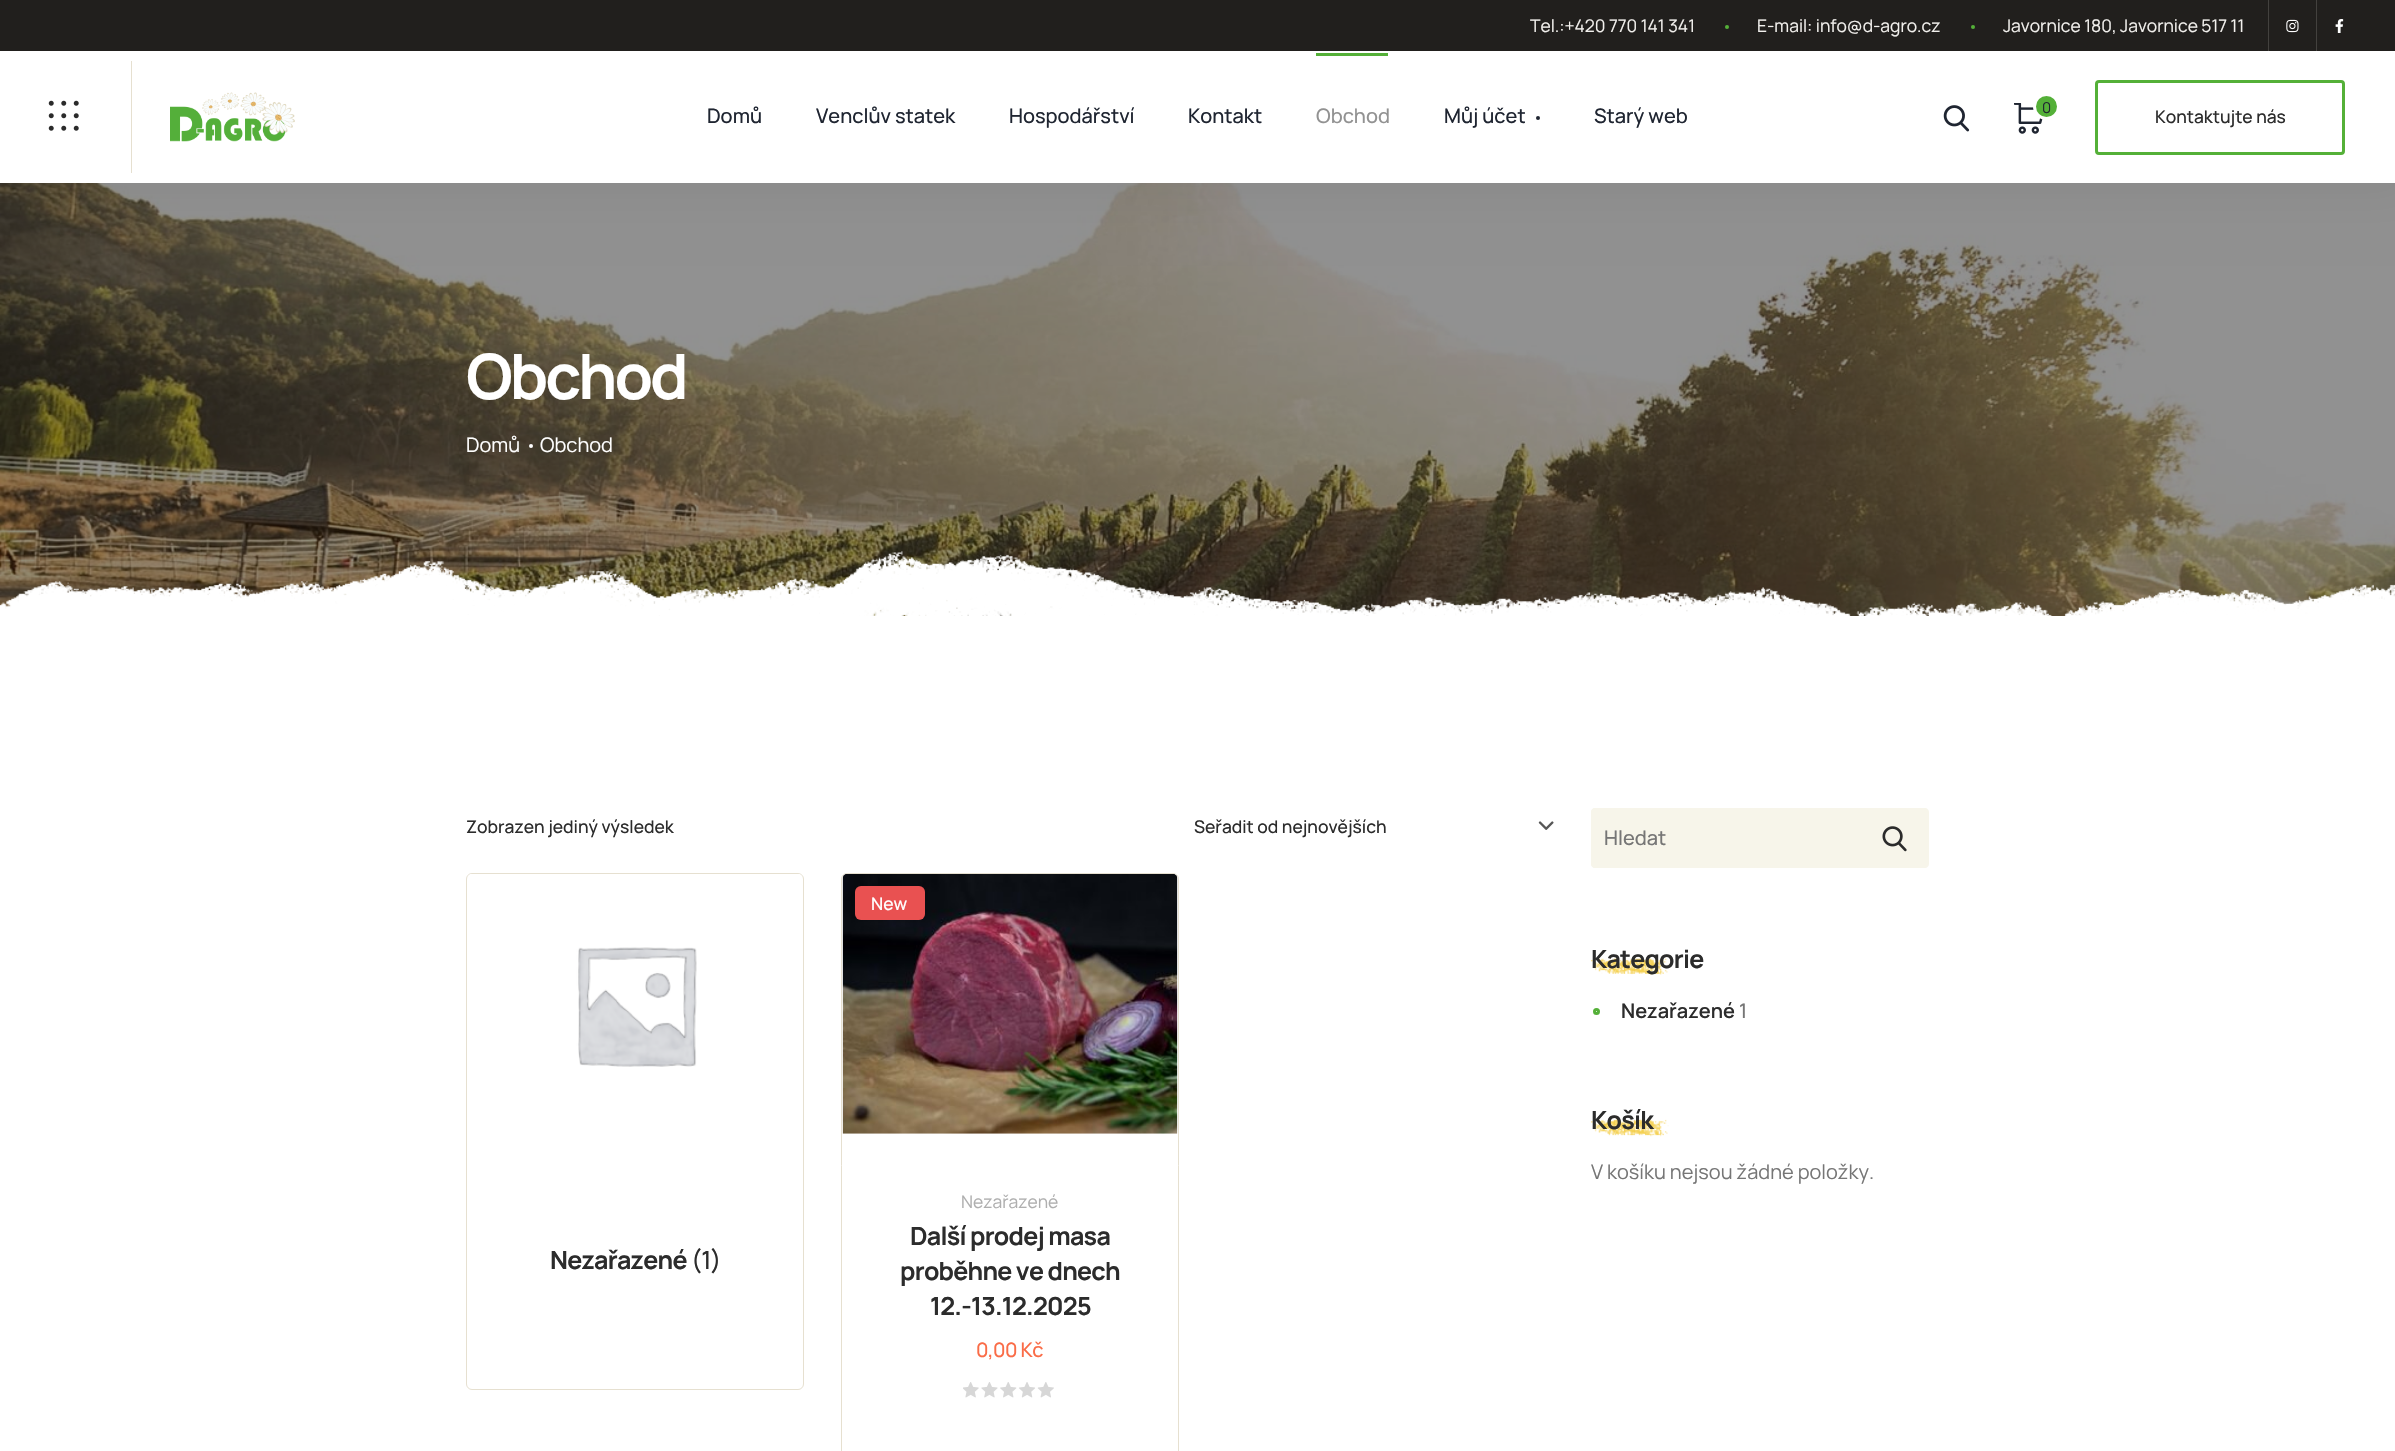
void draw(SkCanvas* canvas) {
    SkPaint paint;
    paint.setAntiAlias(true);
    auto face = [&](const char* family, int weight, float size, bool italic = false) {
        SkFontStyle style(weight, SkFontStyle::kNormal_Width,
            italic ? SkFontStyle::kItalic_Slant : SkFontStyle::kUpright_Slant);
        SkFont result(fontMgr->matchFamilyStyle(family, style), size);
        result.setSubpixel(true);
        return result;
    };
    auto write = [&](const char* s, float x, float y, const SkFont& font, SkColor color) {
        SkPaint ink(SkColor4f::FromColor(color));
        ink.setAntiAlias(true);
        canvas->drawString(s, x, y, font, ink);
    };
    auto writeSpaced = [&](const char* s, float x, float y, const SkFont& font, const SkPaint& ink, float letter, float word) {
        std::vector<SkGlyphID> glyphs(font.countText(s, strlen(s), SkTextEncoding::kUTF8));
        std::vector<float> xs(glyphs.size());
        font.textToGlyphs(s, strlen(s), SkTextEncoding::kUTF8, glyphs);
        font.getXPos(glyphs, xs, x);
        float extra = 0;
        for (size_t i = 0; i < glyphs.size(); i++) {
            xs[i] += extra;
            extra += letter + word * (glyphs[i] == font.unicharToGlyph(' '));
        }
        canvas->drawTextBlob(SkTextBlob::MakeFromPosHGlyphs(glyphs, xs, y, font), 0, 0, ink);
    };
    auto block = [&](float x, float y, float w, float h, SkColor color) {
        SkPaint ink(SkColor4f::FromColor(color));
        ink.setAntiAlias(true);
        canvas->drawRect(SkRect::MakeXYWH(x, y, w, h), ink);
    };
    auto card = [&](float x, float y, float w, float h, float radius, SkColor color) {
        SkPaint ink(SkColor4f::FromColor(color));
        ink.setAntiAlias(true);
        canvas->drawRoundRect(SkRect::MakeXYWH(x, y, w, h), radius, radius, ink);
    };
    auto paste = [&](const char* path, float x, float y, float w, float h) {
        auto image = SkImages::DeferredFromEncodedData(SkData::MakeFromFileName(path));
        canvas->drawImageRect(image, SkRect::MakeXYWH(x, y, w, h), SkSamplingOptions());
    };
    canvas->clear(SK_ColorWHITE);
    block(0, 0, 2395, 51, SkColorSetRGB(33, 31, 29));
    auto kFont1 = face("Manrope", 400, 17.5f);
    write("Tel.:+420 770 141 341", 1530, 32, kFont1, SkColorSetRGB(242, 240, 237));
    paint.setColor(SkColorSetRGB(84, 176, 56));
    canvas->drawCircle(1727, 27, 2, paint);
    write("E-mail: info@d-agro.cz", 1757, 32, kFont1, SkColorSetRGB(242, 240, 237));
    canvas->drawCircle(1973, 27, 2, paint);
    write("Javornice 180, Javornice 517 11", 2003, 32, kFont1, SkColorSetRGB(242, 240, 237));
    block(2268, 0, 1, 51, SkColorSetRGB(67, 65, 62));
    paste("pic1.png", 2286, 19, 13, 14);
    block(2316, 0, 1, 51, SkColorSetRGB(67, 65, 62));
    paste("pic2.png", 2335, 19, 9, 14);
    paste("pic7.png", 0, 183, 2395, 433);
    canvas->save();
    canvas->clipRect(SkRect::MakeXYWH(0, 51, 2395, 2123));
    paint.setColor(SkColorSetARGB(10, 0, 0, 0));
    paint.setMaskFilter(SkMaskFilter::MakeBlur(kNormal_SkBlurStyle, 20.5f));
    canvas->drawRect(SkRect::MakeXYWH(-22, 29, 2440, 176), paint);
    paint.setMaskFilter(nullptr);
    canvas->restore();
    block(0, 51, 2395, 132, SK_ColorWHITE);
    block(131, 61, 1, 112, SkColorSetRGB(230, 224, 208));
    paste("pic3.png", 48, 100, 31, 31);
    paste("pic4.png", 170, 92, 125, 50);
    auto kFont2 = face("Manrope", 500, 20);
    write("Domů", 707, 123, kFont2, SkColorSetRGB(31, 37, 49));
    write("Venclův statek", 816, 123, kFont2, SkColorSetRGB(31, 37, 49));
    write("Hospodářství", 1009, 123, kFont2, SkColorSetRGB(31, 37, 49));
    write("Kontakt", 1188, 123, kFont2, SkColorSetRGB(31, 37, 49));
    block(1316, 53, 72, 3, SkColorSetRGB(84, 176, 56));
    write("Obchod", 1316, 123, kFont2, SkColorSetRGB(146, 146, 146));
    write("Můj účet", 1444, 123, kFont2, SkColorSetRGB(31, 37, 49));
    paint.setColor(SkColorSetRGB(31, 37, 49));
    canvas->drawCircle(1538, 118, 2, paint);
    write("Starý web", 1594, 123, kFont2, SkColorSetRGB(31, 37, 49));
    paste("pic5.png", 1943, 105, 27, 27);
    paste("pic6.png", 2014, 103, 29, 31);
    paint.setColor(SkColorSetRGB(84, 176, 56));
    canvas->drawCircle(2046.5f, 106.5f, 12, paint);
    paint.setStyle(SkPaint::kStroke_Style);
    paint.setStrokeWidth(3);
    paint.setColor(SK_ColorWHITE);
    canvas->drawCircle(2046.5f, 106.5f, 12, paint);
    auto kFont3 = face("Manrope", 400, 15);
    write("0", 2042, 113, kFont3, SkColorSetRGB(31, 37, 49));
    paint.setColor(SkColorSetRGB(84, 176, 56));
    canvas->drawRoundRect(SkRect::MakeXYWH(2096.5f, 81.5f, 247, 72), 2.5f, 2.5f, paint);
    auto kFont4 = face("Manrope", 500, 17.5f);
    write("Kontaktujte nás", 2155, 123, kFont4, SkColorSetRGB(44, 44, 44));
    auto kFont5 = face("Manrope", 700, 62.5f);
    paint.setStyle(SkPaint::kFill_Style);
    paint.setColor(SK_ColorWHITE);
    writeSpaced("Obchod", 466, 399, kFont5, paint, -3, 0);
    auto kFont6 = face("Manrope", 400, 20);
    write("Domů", 466, 452, kFont6, SK_ColorWHITE);
    canvas->drawCircle(531, 446, 2, paint);
    write("Obchod", 540, 452, kFont6, SK_ColorWHITE);
    paste("pic8.png", 0, 551, 2395, 65);
    write("Zobrazen jediný výsledek", 466, 833, kFont4, SkColorSetRGB(44, 44, 44));
    write("Seřadit od nejnovějších", 1194, 833, kFont4, SkColorSetRGB(44, 44, 44));
    paste("pic9.png", 1538, 821, 16, 9);
    paint.setStyle(SkPaint::kStroke_Style);
    paint.setStrokeWidth(1);
    paint.setColor(SkColorSetRGB(230, 224, 208));
    canvas->drawRoundRect(SkRect::MakeXYWH(466.5f, 873.5f, 337, 516), 5.5f, 5.5f, paint);
    paste("pic10.png", 468, 874, 334, 193);
    auto kFont7 = face("Manrope", 700, 25);
    paint.setStyle(SkPaint::kFill_Style);
    paint.setColor(SkColorSetRGB(44, 44, 44));
    writeSpaced("Nezařazené", 550, 1269, kFont7, paint, -0.75f, 0);
    auto kFont8 = face("Manrope", 500, 25);
    writeSpaced("(1)", 691, 1269, kFont8, paint, -0.75f, 0);
    paint.setStyle(SkPaint::kStroke_Style);
    paint.setColor(SkColorSetRGB(230, 224, 208));
    canvas->drawRoundRect(SkRect::MakeXYWH(841.5f, 873.5f, 337, 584), 5.5f, 5.5f, paint);
    paste("pic11.png", 842, 874, 336, 260);
    card(855, 886, 70, 34, 6, SkColorSetRGB(233, 81, 81));
    write("New", 871, 910, kFont4, SK_ColorWHITE);
    write("Nezařazené", 961, 1208, kFont1, SkColorSetRGB(175, 175, 175));
    paint.setStyle(SkPaint::kFill_Style);
    paint.setColor(SkColorSetRGB(44, 44, 44));
    writeSpaced("Další prodej masa", 910, 1245, kFont7, paint, -0.75f, 0);
    writeSpaced("proběhne ve dnech", 900, 1280, kFont7, paint, -0.75f, 0);
    writeSpaced("12.-13.12.2025", 930, 1315, kFont7, paint, -0.75f, 0);
    paint.setColor(SkColorSetRGB(250, 108, 71));
    writeSpaced("0,00 Kč", 976, 1357, kFont2, paint, -0.5f, 0);
    paste("pic12.png", 963, 1382, 91, 16);
    paint.setColor(SkColorSetRGB(247, 245, 234));
    canvas->drawPath(SkPathBuilder().moveTo(1595, 808).lineTo(1854, 808).lineTo(1854, 868).lineTo(1595, 868).cubicTo(1593, 868, 1591, 866, 1591, 864).lineTo(1591, 812).cubicTo(1591, 810, 1593, 808, 1595, 808).close().detach(), paint);
    canvas->drawPath(SkPathBuilder(SkPathFillType::kEvenOdd).moveTo(1595, 808).cubicTo(1593, 808, 1591, 810, 1591, 812).lineTo(1591, 864).cubicTo(1591, 866, 1593, 868, 1595, 868).lineTo(1854, 868).lineTo(1854, 808).close().moveTo(1594, 811).lineTo(1594, 865).lineTo(1851, 865).lineTo(1851, 811).close().detach(), paint);
    write("Hledat", 1604, 845, kFont2, SkColorSetRGB(118, 118, 118));
    canvas->drawPath(SkPathBuilder().moveTo(1854, 808).lineTo(1925, 808).cubicTo(1927, 808, 1929, 810, 1929, 812).lineTo(1929, 864).cubicTo(1929, 866, 1927, 868, 1925, 868).lineTo(1854, 868).close().detach(), paint);
    paste("pic13.png", 1882, 826, 25, 26);
    paste("pic14.png", 1591, 957, 78, 18);
    paint.setColor(SkColorSetRGB(44, 44, 44));
    writeSpaced("Kategorie", 1591, 968, kFont7, paint, -0.75f, 0);
    paint.setStyle(SkPaint::kStroke_Style);
    paint.setStrokeWidth(3);
    paint.setColor(SkColorSetRGB(84, 176, 56));
    canvas->drawCircle(1596.5f, 1011.5f, 2, paint);
    auto kFont9 = face("Manrope", 600, 20);
    write("Nezařazené", 1621, 1018, kFont9, SkColorSetRGB(44, 44, 44));
    write("1", 1739, 1018, kFont2, SkColorSetRGB(118, 118, 118));
    paste("pic15.png", 1591, 1118, 78, 19);
    paint.setStyle(SkPaint::kFill_Style);
    paint.setColor(SkColorSetRGB(44, 44, 44));
    writeSpaced("Košík", 1591, 1129, kFont7, paint, -0.75f, 0);
    write("V košíku nejsou žádné položky.", 1591, 1179, kFont6, SkColorSetRGB(118, 118, 118));
}
